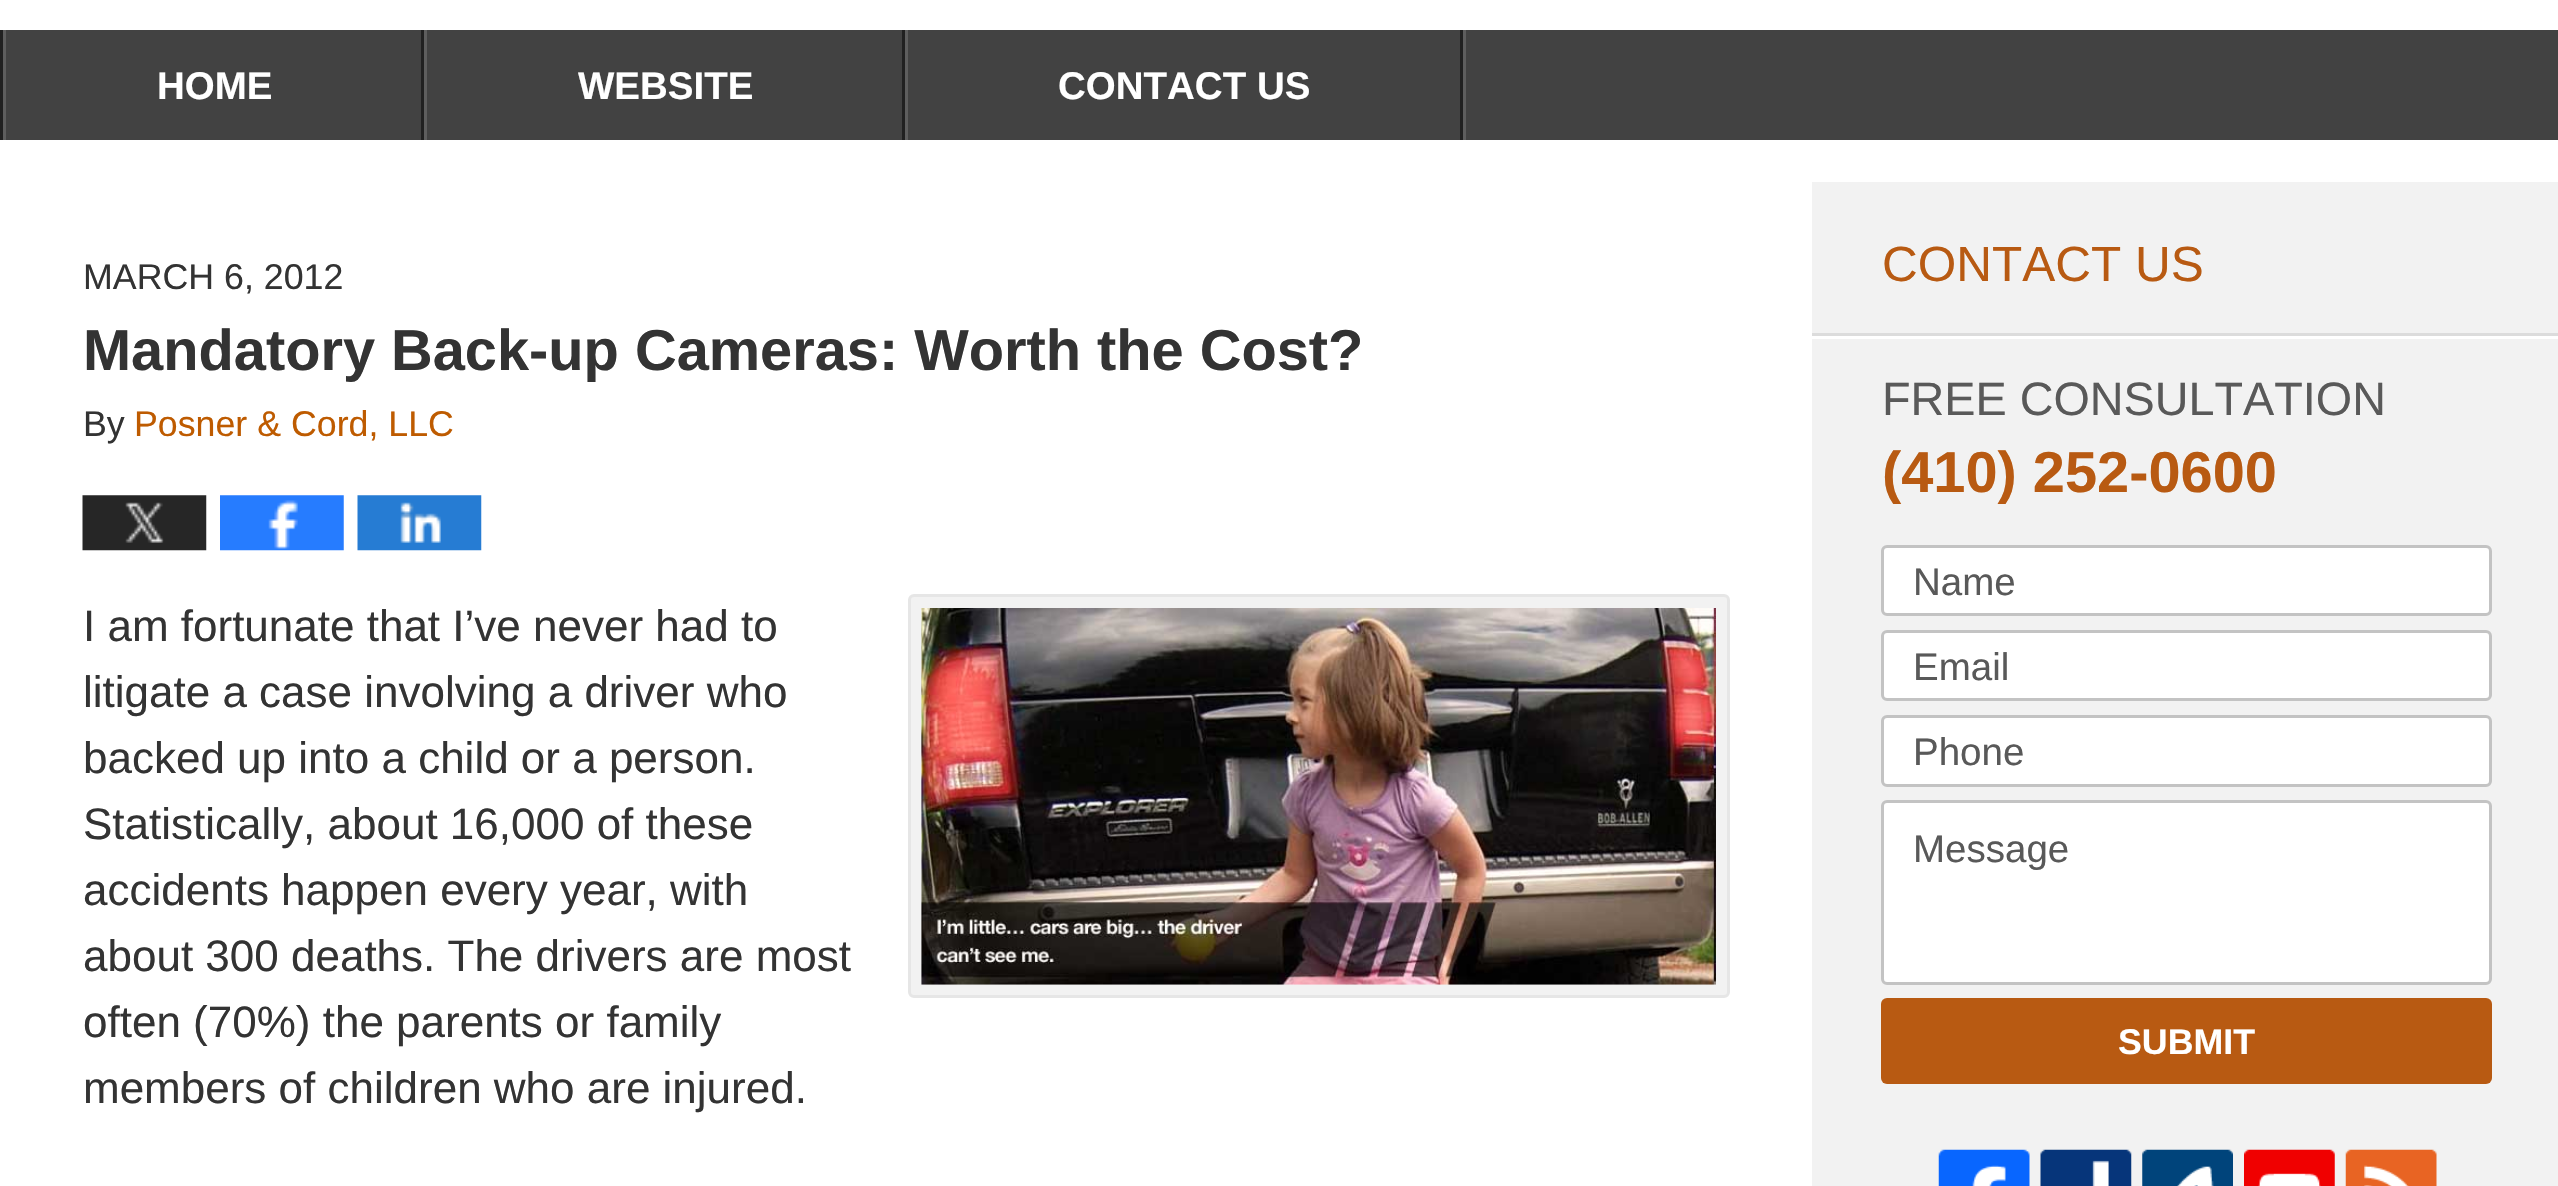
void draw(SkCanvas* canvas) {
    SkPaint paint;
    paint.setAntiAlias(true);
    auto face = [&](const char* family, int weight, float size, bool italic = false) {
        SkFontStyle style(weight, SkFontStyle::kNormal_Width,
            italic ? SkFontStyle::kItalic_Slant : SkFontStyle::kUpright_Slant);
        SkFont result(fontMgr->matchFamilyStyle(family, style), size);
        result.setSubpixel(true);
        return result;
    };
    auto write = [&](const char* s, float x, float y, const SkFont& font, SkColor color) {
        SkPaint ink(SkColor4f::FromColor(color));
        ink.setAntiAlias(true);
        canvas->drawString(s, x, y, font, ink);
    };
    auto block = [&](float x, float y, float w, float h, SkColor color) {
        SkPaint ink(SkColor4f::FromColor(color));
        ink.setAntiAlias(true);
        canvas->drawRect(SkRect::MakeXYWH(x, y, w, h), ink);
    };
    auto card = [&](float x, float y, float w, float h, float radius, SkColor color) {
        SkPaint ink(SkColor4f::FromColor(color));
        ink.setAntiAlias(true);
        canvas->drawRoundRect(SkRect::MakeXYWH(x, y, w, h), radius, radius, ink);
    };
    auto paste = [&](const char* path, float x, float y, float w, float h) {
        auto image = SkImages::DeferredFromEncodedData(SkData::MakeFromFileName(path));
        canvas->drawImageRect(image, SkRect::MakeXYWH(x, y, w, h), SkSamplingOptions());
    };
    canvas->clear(SK_ColorWHITE);
    block(6, 30, 2552, 110, SkColorSetRGB(66, 66, 66));
    block(0, 30, 3, 110, SkColorSetRGB(33, 33, 33));
    block(424, 30, 3, 110, SkColorSetRGB(94, 94, 94));
    block(3, 30, 3, 110, SkColorSetRGB(94, 94, 94));
    auto kFont1 = face("Liberation Sans", 700, 38.5f);
    write("HOME", 157, 99, kFont1, SK_ColorWHITE);
    block(421, 30, 3, 110, SkColorSetRGB(33, 33, 33));
    block(905, 30, 3, 110, SkColorSetRGB(94, 94, 94));
    write("WEBSITE", 578, 99, kFont1, SK_ColorWHITE);
    block(902, 30, 3, 110, SkColorSetRGB(33, 33, 33));
    block(1463, 30, 3, 110, SkColorSetRGB(94, 94, 94));
    write("CONTACT US", 1058, 99, kFont1, SK_ColorWHITE);
    block(1460, 30, 3, 110, SkColorSetRGB(33, 33, 33));
    block(1812, 182, 746, 1004, SkColorSetRGB(242, 242, 242));
    auto kFont2 = face("Liberation Sans", 400, 35.75f);
    write("MARCH 6, 2012", 83, 289, kFont2, SkColorSetRGB(51, 51, 51));
    auto kFont3 = face("Liberation Sans", 700, 57.75f);
    write("Mandatory Back-up Cameras: Worth the Cost?", 83, 370, kFont3, SkColorSetRGB(51, 51, 51));
    write("By", 83, 436, kFont2, SkColorSetRGB(51, 51, 51));
    write("Posner & Cord, LLC", 134, 436, kFont2, SkColorSetRGB(190, 91, 0));
    paste("pic1.png", 82, 495, 125, 56);
    paste("pic2.png", 220, 495, 124, 56);
    paste("pic3.png", 357, 495, 125, 56);
    auto kFont4 = face("Liberation Sans", 400, 44);
    write("I am fortunate that I’ve never had to", 83, 641, kFont4, SkColorSetRGB(51, 51, 51));
    paint.setColor(SkColorSetRGB(242, 242, 242));
    canvas->drawRoundRect(SkRect::MakeXYWH(909.5f, 595.5f, 819, 401), 4.5f, 4.5f, paint);
    paint.setStyle(SkPaint::kStroke_Style);
    paint.setStrokeWidth(3);
    paint.setColor(SkColorSetRGB(230, 230, 230));
    canvas->drawRoundRect(SkRect::MakeXYWH(909.5f, 595.5f, 819, 401), 4.5f, 4.5f, paint);
    paste("pic4.png", 921, 608, 795, 377);
    write("litigate a case involving a driver who", 83, 707, kFont4, SkColorSetRGB(51, 51, 51));
    write("backed up into a child or a person.", 83, 773, kFont4, SkColorSetRGB(51, 51, 51));
    write("Statistically, about 16,000 of these", 83, 839, kFont4, SkColorSetRGB(51, 51, 51));
    write("accidents happen every year, with", 83, 905, kFont4, SkColorSetRGB(51, 51, 51));
    write("about 300 deaths. The drivers are most", 83, 971, kFont4, SkColorSetRGB(51, 51, 51));
    write("often (70%) the parents or family", 83, 1037, kFont4, SkColorSetRGB(51, 51, 51));
    write("members of children who are injured.", 83, 1103, kFont4, SkColorSetRGB(51, 51, 51));
    block(1812, 336, 746, 3, SK_ColorWHITE);
    auto kFont5 = face("Liberation Sans", 400, 49.5f);
    write("CONTACT US", 1882, 281, kFont5, SkColorSetRGB(184, 90, 18));
    block(1812, 333, 746, 3, SkColorSetRGB(220, 220, 220));
    auto kFont6 = face("Liberation Sans", 400, 46.75f);
    write("FREE CONSULTATION", 1882, 415, kFont6, SkColorSetRGB(89, 89, 89));
    write("(410) 252-0600", 1882, 492, kFont3, SkColorSetRGB(184, 90, 18));
    paint.setStyle(SkPaint::kFill_Style);
    paint.setColor(SK_ColorWHITE);
    canvas->drawRoundRect(SkRect::MakeXYWH(1882.5f, 546.5f, 608, 68), 4.5f, 4.5f, paint);
    paint.setStyle(SkPaint::kStroke_Style);
    paint.setColor(SkColorSetRGB(195, 195, 195));
    canvas->drawRoundRect(SkRect::MakeXYWH(1882.5f, 546.5f, 608, 68), 4.5f, 4.5f, paint);
    auto kFont7 = face("Liberation Sans", 400, 38.5f);
    write("Name", 1913, 595, kFont7, SkColorSetRGB(89, 89, 89));
    paint.setStyle(SkPaint::kFill_Style);
    paint.setColor(SK_ColorWHITE);
    canvas->drawRoundRect(SkRect::MakeXYWH(1882.5f, 631.5f, 608, 68), 4.5f, 4.5f, paint);
    paint.setStyle(SkPaint::kStroke_Style);
    paint.setColor(SkColorSetRGB(195, 195, 195));
    canvas->drawRoundRect(SkRect::MakeXYWH(1882.5f, 631.5f, 608, 68), 4.5f, 4.5f, paint);
    write("Email", 1913, 680, kFont7, SkColorSetRGB(89, 89, 89));
    paint.setStyle(SkPaint::kFill_Style);
    paint.setColor(SK_ColorWHITE);
    canvas->drawRoundRect(SkRect::MakeXYWH(1882.5f, 716.5f, 608, 69), 4.5f, 4.5f, paint);
    paint.setStyle(SkPaint::kStroke_Style);
    paint.setColor(SkColorSetRGB(195, 195, 195));
    canvas->drawRoundRect(SkRect::MakeXYWH(1882.5f, 716.5f, 608, 69), 4.5f, 4.5f, paint);
    write("Phone", 1913, 765, kFont7, SkColorSetRGB(89, 89, 89));
    paint.setStyle(SkPaint::kFill_Style);
    paint.setColor(SK_ColorWHITE);
    canvas->drawRoundRect(SkRect::MakeXYWH(1882.5f, 801.5f, 608, 182), 4.5f, 4.5f, paint);
    paint.setStyle(SkPaint::kStroke_Style);
    paint.setColor(SkColorSetRGB(195, 195, 195));
    canvas->drawRoundRect(SkRect::MakeXYWH(1882.5f, 801.5f, 608, 182), 4.5f, 4.5f, paint);
    write("Message", 1913, 862, kFont7, SkColorSetRGB(89, 89, 89));
    card(1881, 998, 611, 86, 6, SkColorSetRGB(184, 90, 18));
    auto kFont8 = face("Liberation Sans", 700, 35.75f);
    write("SUBMIT", 2118, 1054, kFont8, SK_ColorWHITE);
    paste("pic5.png", 1938, 1149, 92, 37);
    paste("pic6.png", 2040, 1149, 92, 37);
    paste("pic7.png", 2142, 1149, 91, 37);
    paste("pic8.png", 2244, 1149, 91, 37);
    paste("pic9.png", 2345, 1149, 92, 37);
}
